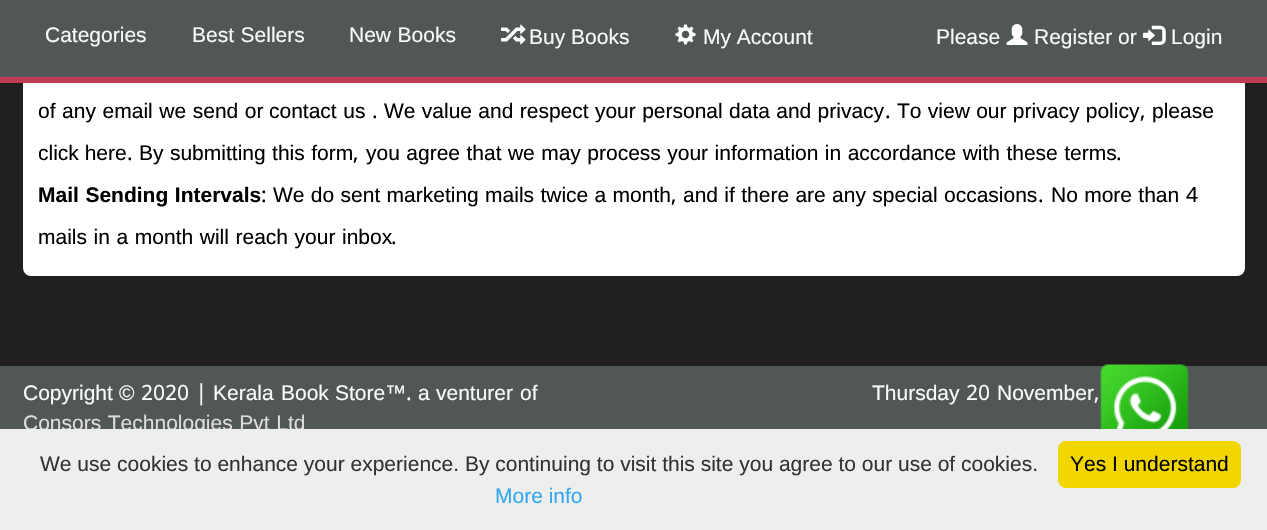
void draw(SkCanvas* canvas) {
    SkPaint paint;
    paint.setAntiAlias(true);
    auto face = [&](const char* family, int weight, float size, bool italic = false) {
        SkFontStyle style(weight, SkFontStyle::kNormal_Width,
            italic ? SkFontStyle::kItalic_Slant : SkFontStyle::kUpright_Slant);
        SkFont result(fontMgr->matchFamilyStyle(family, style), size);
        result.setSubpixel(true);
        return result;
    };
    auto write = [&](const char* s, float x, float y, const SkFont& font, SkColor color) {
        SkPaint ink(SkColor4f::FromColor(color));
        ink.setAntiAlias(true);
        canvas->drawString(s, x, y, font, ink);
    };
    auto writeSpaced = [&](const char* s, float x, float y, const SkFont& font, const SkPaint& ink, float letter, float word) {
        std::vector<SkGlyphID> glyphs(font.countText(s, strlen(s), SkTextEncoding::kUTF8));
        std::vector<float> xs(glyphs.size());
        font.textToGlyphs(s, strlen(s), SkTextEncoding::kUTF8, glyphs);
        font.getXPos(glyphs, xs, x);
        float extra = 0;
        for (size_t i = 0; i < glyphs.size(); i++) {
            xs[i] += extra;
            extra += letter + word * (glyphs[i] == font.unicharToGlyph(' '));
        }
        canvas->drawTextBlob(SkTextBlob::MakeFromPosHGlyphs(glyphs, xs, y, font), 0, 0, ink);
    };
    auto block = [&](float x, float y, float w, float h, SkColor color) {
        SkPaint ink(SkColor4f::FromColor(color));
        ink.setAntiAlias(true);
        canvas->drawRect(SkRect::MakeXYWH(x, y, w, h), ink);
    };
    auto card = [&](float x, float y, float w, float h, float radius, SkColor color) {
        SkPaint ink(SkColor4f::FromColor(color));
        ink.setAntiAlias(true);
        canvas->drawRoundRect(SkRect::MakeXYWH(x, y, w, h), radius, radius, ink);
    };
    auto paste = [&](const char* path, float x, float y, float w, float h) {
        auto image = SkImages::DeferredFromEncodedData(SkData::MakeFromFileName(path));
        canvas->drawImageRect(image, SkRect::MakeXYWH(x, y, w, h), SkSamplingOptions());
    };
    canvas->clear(SkColorSetRGB(33, 31, 32));
    card(23, -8, 1222, 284, 8, SK_ColorWHITE);
    block(0, 0, 1267, 77, SkColorSetRGB(81, 87, 87));
    block(0, 77, 1267, 6, SkColorSetRGB(193, 58, 85));
    auto kFont1 = face("Liberation Sans", 400, 21);
    write("Categories", 45, 42, kFont1, SkColorSetRGB(250, 250, 250));
    paint.setColor(SkColorSetRGB(250, 250, 250));
    writeSpaced("Best Sellers", 192, 42, kFont1, paint, 0, 0.75f);
    writeSpaced("New Books", 349, 42, kFont1, paint, 0, 0.75f);
    paste("pic1.png", 501, 24, 25, 21);
    write("Buy Books", 529, 44, kFont1, SkColorSetRGB(250, 250, 250));
    paste("pic2.png", 675, 24, 21, 21);
    write("My Account", 703, 44, kFont1, SkColorSetRGB(250, 250, 250));
    write("Please", 936, 44, kFont1, SkColorSetRGB(250, 250, 250));
    paste("pic3.png", 1006, 24, 22, 21);
    write("Register or", 1034, 44, kFont1, SkColorSetRGB(250, 250, 250));
    paste("pic4.png", 1143, 25, 23, 20);
    write("Login", 1171, 44, kFont1, SkColorSetRGB(250, 250, 250));
    paint.setColor(SK_ColorBLACK);
    writeSpaced("of any email we send or", 38, 118, kFont1, paint, 0, 0.75f);
    writeSpaced("contact us", 269, 118, kFont1, paint, 0, 0.75f);
    auto kFont2 = face("Noto Sans Malayalam", 400, 21);
    write(".", 372, 118, kFont2, SK_ColorBLACK);
    writeSpaced("We value and respect your personal data and privacy", 384, 118, kFont1, paint, 0, 0.5f);
    write(".", 885, 118, kFont2, SK_ColorBLACK);
    writeSpaced("To view our privacy policy", 897, 118, kFont1, paint, 0, 0.5f);
    write(",", 1140, 118, kFont2, SK_ColorBLACK);
    write("please", 1152, 118, kFont1, SK_ColorBLACK);
    write("click here", 38, 160, kFont1, SK_ColorBLACK);
    write(".", 127, 160, kFont2, SK_ColorBLACK);
    writeSpaced("By submitting this form", 139, 160, kFont1, paint, 0, 0.6f);
    write(",", 353, 160, kFont2, SK_ColorBLACK);
    writeSpaced("you agree that we may process your information in accordance with these terms", 366, 160, kFont1, paint, 0, 0.6f);
    write(".", 1116, 160, kFont2, SK_ColorBLACK);
    auto kFont3 = face("Liberation Sans", 700, 21);
    writeSpaced("Mail Sending Intervals", 38, 202, kFont3, paint, 0, 0.75f);
    write(":", 261, 202, kFont2, SK_ColorBLACK);
    writeSpaced("We do sent marketing mails twice a month", 273, 202, kFont1, paint, 0, 0.5f);
    write(",", 671, 202, kFont2, SK_ColorBLACK);
    writeSpaced("and if there are any special occasions", 683, 202, kFont1, paint, 0, 0.5f);
    write(".", 1038, 202, kFont2, SK_ColorBLACK);
    writeSpaced("No more than", 1051, 202, kFont1, paint, 0, 0.5f);
    write("4", 1186, 202, kFont2, SK_ColorBLACK);
    writeSpaced("mails in a month will reach your inbox", 38, 244, kFont1, paint, 0, 0.75f);
    write(".", 391, 244, kFont2, SK_ColorBLACK);
    block(0, 366, 1267, 63, SkColorSetRGB(81, 87, 87));
    write("Copyright", 23, 400, kFont1, SkColorSetRGB(250, 250, 250));
    write("©", 119, 400, kFont1, SkColorSetRGB(250, 250, 250));
    write("2020 |", 141, 400, kFont2, SkColorSetRGB(250, 250, 250));
    write("Kerala", 213, 400, kFont1, SkColorSetRGB(250, 250, 250));
    write("Book", 281, 400, kFont1, SkColorSetRGB(250, 250, 250));
    write("Store™", 335, 400, kFont1, SkColorSetRGB(250, 250, 250));
    write(".", 406, 400, kFont2, SkColorSetRGB(250, 250, 250));
    write("a", 418, 400, kFont1, SkColorSetRGB(250, 250, 250));
    write("venturer", 436, 400, kFont1, SkColorSetRGB(250, 250, 250));
    write("of", 520, 400, kFont1, SkColorSetRGB(250, 250, 250));
    paint.setColor(SkColorSetRGB(221, 221, 221));
    writeSpaced("Consors Technologies Pvt Ltd", 23, 430, kFont1, paint, 0, 0.75f);
    write("Thursday", 872, 400, kFont1, SkColorSetRGB(250, 250, 250));
    write("20", 966, 400, kFont2, SkColorSetRGB(250, 250, 250));
    write("November", 997, 400, kFont1, SkColorSetRGB(250, 250, 250));
    write(",", 1094, 400, kFont2, SkColorSetRGB(250, 250, 250));
    paste("pic5.png", 1099, 364, 90, 65);
    block(0, 429, 1267, 101, SkColorSetRGB(238, 238, 238));
    write("We use cookies to enhance your experience. By continuing to visit this site you agree to our use of cookies.", 40, 471, kFont1, SkColorSetRGB(51, 51, 51));
    write("More info", 495, 503, kFont1, SkColorSetRGB(49, 168, 240));
    card(1058, 441, 183, 47, 8, SkColorSetRGB(241, 214, 0));
    write("Yes I understand", 1070, 471, kFont1, SK_ColorBLACK);
}
